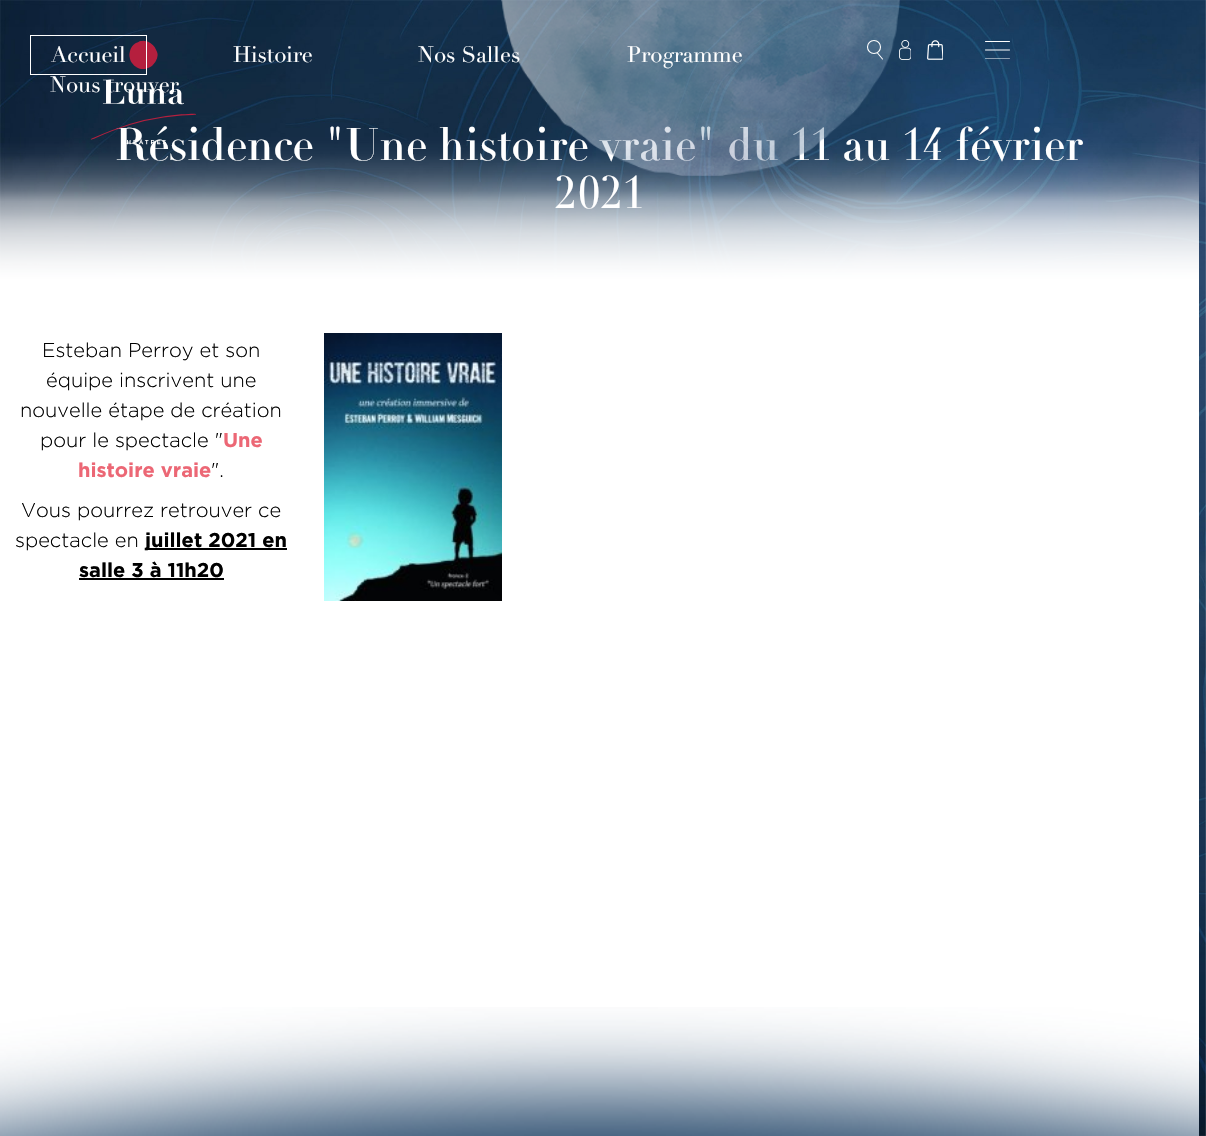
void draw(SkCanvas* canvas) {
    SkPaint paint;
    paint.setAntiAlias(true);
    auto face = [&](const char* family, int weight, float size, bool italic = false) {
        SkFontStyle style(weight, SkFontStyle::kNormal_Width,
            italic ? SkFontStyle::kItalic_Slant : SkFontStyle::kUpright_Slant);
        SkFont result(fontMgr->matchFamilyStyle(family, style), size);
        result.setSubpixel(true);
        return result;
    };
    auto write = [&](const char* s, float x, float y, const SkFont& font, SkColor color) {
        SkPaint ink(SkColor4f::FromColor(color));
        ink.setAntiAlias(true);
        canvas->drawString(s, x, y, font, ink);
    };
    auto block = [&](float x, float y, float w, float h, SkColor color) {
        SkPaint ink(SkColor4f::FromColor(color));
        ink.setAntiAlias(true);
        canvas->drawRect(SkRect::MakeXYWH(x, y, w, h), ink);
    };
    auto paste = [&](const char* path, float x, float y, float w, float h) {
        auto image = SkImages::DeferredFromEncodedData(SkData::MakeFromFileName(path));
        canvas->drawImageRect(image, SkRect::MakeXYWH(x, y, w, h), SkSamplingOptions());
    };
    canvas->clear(SK_ColorWHITE);
    paste("pic1.png", 0, 0, 1206, 1136);
    auto kFont1 = face("Didot", 400, 45);
    write("Résidence \"Une histoire vraie\" du 11 au 14 février", 115, 160, kFont1, SK_ColorWHITE);
    paste("pic2.png", 90, 40, 106, 105);
    write("2021", 555, 208, kFont1, SK_ColorWHITE);
    paste("pic5.png", 501, 0, 399, 176);
    paint.setStyle(SkPaint::kStroke_Style);
    paint.setStrokeWidth(1.1f);
    paint.setColor(SK_ColorWHITE);
    canvas->drawCircle(874, 47, 6.5f, paint);
    paint.setStrokeCap(SkPaint::kRound_Cap);
    canvas->drawPath(SkPathBuilder().moveTo(877.5f, 53).lineTo(882.5f, 59).detach(), paint);
    paste("pic3.png", 899, 40, 12, 20);
    paste("pic4.png", 927, 40, 16, 20);
    paint.setStrokeWidth(1);
    canvas->drawPath(SkPathBuilder().moveTo(985.5f, 41.5f).lineTo(1009.5f, 41.5f).moveTo(985.5f, 50).lineTo(1009.5f, 50).detach(), paint);
    canvas->save();
    canvas->clipRect(SkRect::MakeXYWH(985, 41, 25, 18));
    canvas->drawPath(SkPathBuilder().moveTo(985.5f, 59).lineTo(1009.5f, 59).detach(), paint);
    canvas->restore();
    paint.setStrokeCap(SkPaint::kButt_Cap);
    canvas->drawRect(SkRect::MakeXYWH(30.5f, 35.5f, 116, 39), paint);
    auto kFont2 = face("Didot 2", 400, 22);
    write("Accueil", 51, 62, kFont2, SK_ColorWHITE);
    write("Histoire", 233, 62, kFont2, SK_ColorWHITE);
    write("Nos Salles", 418, 62, kFont2, SK_ColorWHITE);
    write("Programme", 627, 62, kFont2, SK_ColorWHITE);
    write("Nous trouver", 50, 92, kFont2, SK_ColorWHITE);
    block(0, 280, 1199, 856, SK_ColorWHITE);
    auto kFont3 = face("Gotham", 300, 20);
    write("Esteban Perroy et son", 42, 357, kFont3, SK_ColorBLACK);
    write("équipe inscrivent une", 46, 387, kFont3, SK_ColorBLACK);
    write("nouvelle étape de création", 20, 417, kFont3, SK_ColorBLACK);
    write("pour le spectacle \"", 40, 447, kFont3, SK_ColorBLACK);
    auto kFont4 = face("Gotham", 700, 20);
    write("Une", 223, 447, kFont4, SkColorSetRGB(236, 103, 117));
    write("histoire vraie", 78, 477, kFont4, SkColorSetRGB(236, 103, 117));
    write("\".", 211, 477, kFont3, SK_ColorBLACK);
    write("Vous pourrez retrouver ce", 21, 517, kFont3, SK_ColorBLACK);
    write("spectacle en", 15, 547, kFont3, SK_ColorBLACK);
    block(145, 548, 142, 2, SK_ColorBLACK);
    write("juillet 2021 en", 145, 547, kFont4, SK_ColorBLACK);
    write("salle 3 à 11h20", 79, 577, kFont4, SK_ColorBLACK);
    block(79, 578, 145, 2, SK_ColorBLACK);
    paste("pic6.png", 324, 333, 178, 268);
    paste("pic7.png", 0, 1007, 1199, 129);
}
